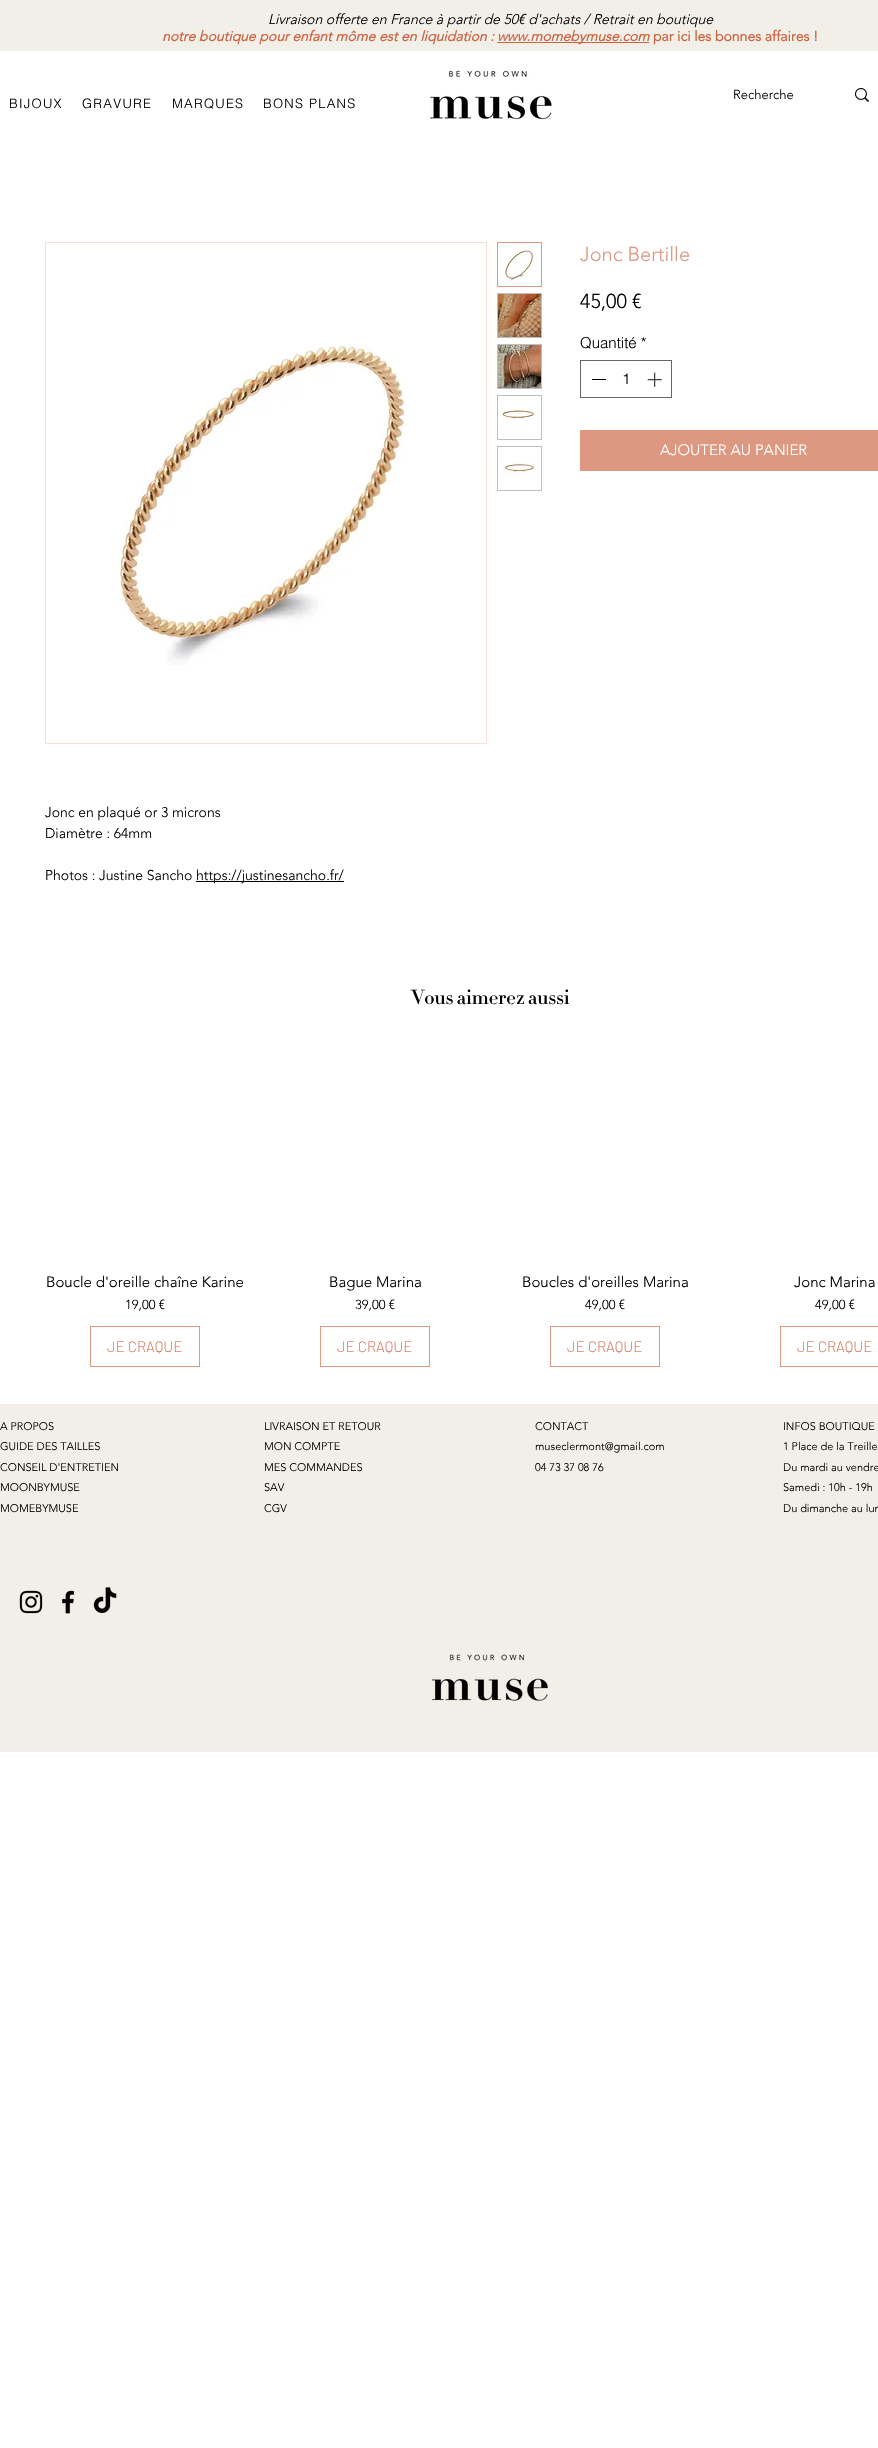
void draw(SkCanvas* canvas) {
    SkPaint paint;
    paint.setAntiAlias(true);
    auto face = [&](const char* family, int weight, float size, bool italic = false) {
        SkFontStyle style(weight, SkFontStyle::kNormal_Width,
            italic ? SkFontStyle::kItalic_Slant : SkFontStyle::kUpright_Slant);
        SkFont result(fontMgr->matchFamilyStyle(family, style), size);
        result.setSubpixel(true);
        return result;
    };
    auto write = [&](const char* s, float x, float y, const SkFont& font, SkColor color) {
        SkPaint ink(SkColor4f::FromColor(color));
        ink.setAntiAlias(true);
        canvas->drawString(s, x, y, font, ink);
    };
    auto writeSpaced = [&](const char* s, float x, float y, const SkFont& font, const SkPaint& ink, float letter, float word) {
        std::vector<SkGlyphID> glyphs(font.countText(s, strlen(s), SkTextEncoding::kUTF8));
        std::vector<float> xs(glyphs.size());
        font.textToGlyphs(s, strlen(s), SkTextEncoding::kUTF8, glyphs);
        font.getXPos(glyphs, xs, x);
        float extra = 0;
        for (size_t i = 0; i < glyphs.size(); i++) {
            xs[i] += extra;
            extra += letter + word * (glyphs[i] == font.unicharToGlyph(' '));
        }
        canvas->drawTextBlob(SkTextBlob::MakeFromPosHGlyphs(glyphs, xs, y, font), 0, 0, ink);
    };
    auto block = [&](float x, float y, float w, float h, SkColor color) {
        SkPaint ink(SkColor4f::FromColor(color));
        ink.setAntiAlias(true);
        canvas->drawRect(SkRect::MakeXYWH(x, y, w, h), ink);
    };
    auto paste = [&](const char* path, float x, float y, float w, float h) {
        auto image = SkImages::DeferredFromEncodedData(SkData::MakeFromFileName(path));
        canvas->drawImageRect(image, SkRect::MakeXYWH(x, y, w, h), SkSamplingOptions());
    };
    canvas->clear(SK_ColorWHITE);
    block(0, 0, 878, 51, SkColorSetRGB(242, 239, 233));
    auto kFont1 = face("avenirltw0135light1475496", 300, 14, true);
    write("Livraison offerte en France à partir de 50€ d'achats / Retrait en boutique", 268, 24, kFont1, SK_ColorBLACK);
    auto kFont2 = face("avenirltw0135light1475496", 700, 14, true);
    write("notre boutique pour enfant môme est en liquidation :", 162, 41, kFont2, SkColorSetRGB(203, 100, 66));
    block(497, 42, 152, 1, SkColorSetRGB(203, 100, 66));
    write("www.momebymuse.com", 497, 41, kFont2, SkColorSetRGB(203, 100, 66));
    auto kFont3 = face("avenirltw0135light1475496", 700, 14);
    write("par ici les bonnes affaires !", 653, 41, kFont3, SkColorSetRGB(203, 100, 66));
    paste("pic1.png", 430, 70, 122, 50);
    auto kFont4 = face("avenirltw0135light1475496", 300, 13);
    write("Recherche", 733, 99, kFont4, SK_ColorBLACK);
    paste("pic2.png", 855, 88, 14, 14);
    auto kFont5 = face("helvetica", 300, 13);
    paint.setColor(SK_ColorBLACK);
    writeSpaced("BIJOUX", 9, 108, kFont5, paint, 1.25f, 0);
    writeSpaced("GRAVURE", 82, 108, kFont5, paint, 1.25f, 0);
    writeSpaced("MARQUES", 172, 108, kFont5, paint, 1.25f, 0);
    writeSpaced("BONS PLANS", 263, 108, kFont5, paint, 1.25f, 0);
    auto kFont6 = face("avenirltw0135light1475496", 300, 20);
    write("Jonc Bertille", 580, 261, kFont6, SkColorSetRGB(220, 152, 129));
    write("45,00 €", 580, 308, kFont6, SK_ColorBLACK);
    auto kFont7 = face("helvetica", 300, 15);
    write("Quantité *", 580, 348, kFont7, SK_ColorBLACK);
    paint.setStyle(SkPaint::kStroke_Style);
    paint.setStrokeWidth(1);
    paint.setColor(SkColorSetRGB(102, 102, 102));
    canvas->drawRect(SkRect::MakeXYWH(580.5f, 360.5f, 91, 37), paint);
    block(592, 379, 14, 1, SK_ColorBLACK);
    write("1", 622, 384, kFont7, SK_ColorBLACK);
    paste("pic3.png", 647, 372, 15, 15);
    block(580, 430, 298, 41, SkColorSetRGB(220, 152, 129));
    auto kFont8 = face("avenirltw0135light1475496", 300, 15);
    write("AJOUTER AU PANIER", 660, 455, kFont8, SK_ColorWHITE);
    paint.setColor(SkColorSetRGB(245, 224, 217));
    canvas->drawRect(SkRect::MakeXYWH(45.5f, 242.5f, 441, 501), paint);
    paste("pic4.png", 118, 344, 288, 321);
    paint.setColor(SkColorSetRGB(220, 152, 129));
    canvas->drawRect(SkRect::MakeXYWH(497.5f, 242.5f, 44, 44), paint);
    paste("pic5.png", 503, 247, 35, 36);
    paint.setColor(SkColorSetRGB(191, 191, 191));
    canvas->drawRect(SkRect::MakeXYWH(497.5f, 293.5f, 44, 44), paint);
    paste("pic6.png", 498, 294, 43, 43);
    canvas->drawRect(SkRect::MakeXYWH(497.5f, 344.5f, 44, 44), paint);
    paste("pic7.png", 498, 345, 43, 43);
    canvas->drawRect(SkRect::MakeXYWH(497.5f, 395.5f, 44, 44), paint);
    paste("pic8.png", 502, 410, 32, 9);
    canvas->drawRect(SkRect::MakeXYWH(497.5f, 446.5f, 44, 44), paint);
    paste("pic9.png", 503, 463, 32, 11);
    auto kFont9 = face("avenirltw0135light1475496", 300, 14);
    write("Jonc en plaqué or 3 microns", 45, 817, kFont9, SK_ColorBLACK);
    write("Diamètre : 64mm", 45, 838, kFont9, SK_ColorBLACK);
    write("Photos : Justine Sancho", 45, 880, kFont9, SK_ColorBLACK);
    block(196, 881, 148, 1, SK_ColorBLACK);
    write("https://justinesancho.fr/", 196, 880, kFont9, SK_ColorBLACK);
    auto kFont10 = face("Didot", 500, 20);
    write("Vous aimerez aussi", 411, 1004, kFont10, SK_ColorBLACK);
    write("Boucle d'oreille chaîne Karine", 46, 1287, kFont8, SK_ColorBLACK);
    write("19,00 €", 125, 1309, kFont4, SK_ColorBLACK);
    paint.setColor(SkColorSetRGB(220, 152, 129));
    canvas->drawRect(SkRect::MakeXYWH(90.5f, 1326.5f, 109, 40), paint);
    auto kFont11 = face("Barlow", 200, 15);
    write("JE CRAQUE", 107, 1352, kFont11, SkColorSetRGB(203, 100, 66));
    write("Bague Marina", 329, 1287, kFont8, SK_ColorBLACK);
    write("39,00 €", 355, 1309, kFont4, SK_ColorBLACK);
    canvas->drawRect(SkRect::MakeXYWH(320.5f, 1326.5f, 109, 40), paint);
    write("JE CRAQUE", 337, 1352, kFont11, SkColorSetRGB(203, 100, 66));
    write("Boucles d'oreilles Marina", 522, 1287, kFont8, SK_ColorBLACK);
    write("49,00 €", 585, 1309, kFont4, SK_ColorBLACK);
    canvas->drawRect(SkRect::MakeXYWH(550.5f, 1326.5f, 109, 40), paint);
    write("JE CRAQUE", 567, 1352, kFont11, SkColorSetRGB(203, 100, 66));
    write("Jonc Marina", 794, 1287, kFont8, SK_ColorBLACK);
    write("49,00 €", 815, 1309, kFont4, SK_ColorBLACK);
    canvas->drawRect(SkRect::MakeXYWH(780.5f, 1326.5f, 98, 40), paint);
    write("JE CRAQUE", 797, 1352, kFont11, SkColorSetRGB(203, 100, 66));
    block(0, 1405, 878, 347, SkColorSetRGB(242, 239, 233));
    block(0, 1404, 878, 1, SkColorSetRGB(244, 241, 236));
    auto kFont12 = face("avenirltw0135light1475496", 300, 11);
    write("A PROPOS", 0, 1430, kFont12, SK_ColorBLACK);
    write("GUIDE DES TAILLES", 0, 1450, kFont12, SK_ColorBLACK);
    write("CONSEIL D'ENTRETIEN", 0, 1471, kFont12, SK_ColorBLACK);
    write("MOONBYMUSE", 0, 1491, kFont12, SK_ColorBLACK);
    write("MOMEBYMUSE", 0, 1512, kFont12, SK_ColorBLACK);
    write("LIVRAISON ET RETOUR", 264, 1430, kFont12, SK_ColorBLACK);
    write("MON COMPTE", 264, 1450, kFont12, SK_ColorBLACK);
    write("MES COMMANDES", 264, 1471, kFont12, SK_ColorBLACK);
    write("SAV", 264, 1491, kFont12, SK_ColorBLACK);
    write("CGV", 264, 1512, kFont12, SK_ColorBLACK);
    write("CONTACT", 535, 1430, kFont12, SK_ColorBLACK);
    write("museclermont@gmail.com", 535, 1450, kFont12, SK_ColorBLACK);
    write("04 73 37 08 76", 535, 1471, kFont12, SK_ColorBLACK);
    write("INFOS BOUTIQUE", 783, 1430, kFont12, SK_ColorBLACK);
    write("1 Place de la Treille", 783, 1450, kFont12, SK_ColorBLACK);
    write("Du mardi au vendre", 783, 1471, kFont12, SK_ColorBLACK);
    write("Samedi : 10h - 19h", 783, 1491, kFont12, SK_ColorBLACK);
    write("Du dimanche au lun", 783, 1512, kFont12, SK_ColorBLACK);
    paste("pic10.png", 19, 1590, 24, 24);
    paste("pic11.png", 62, 1590, 13, 24);
    paste("pic12.png", 93, 1587, 24, 27);
    paste("pic13.png", 431, 1654, 117, 47);
}
